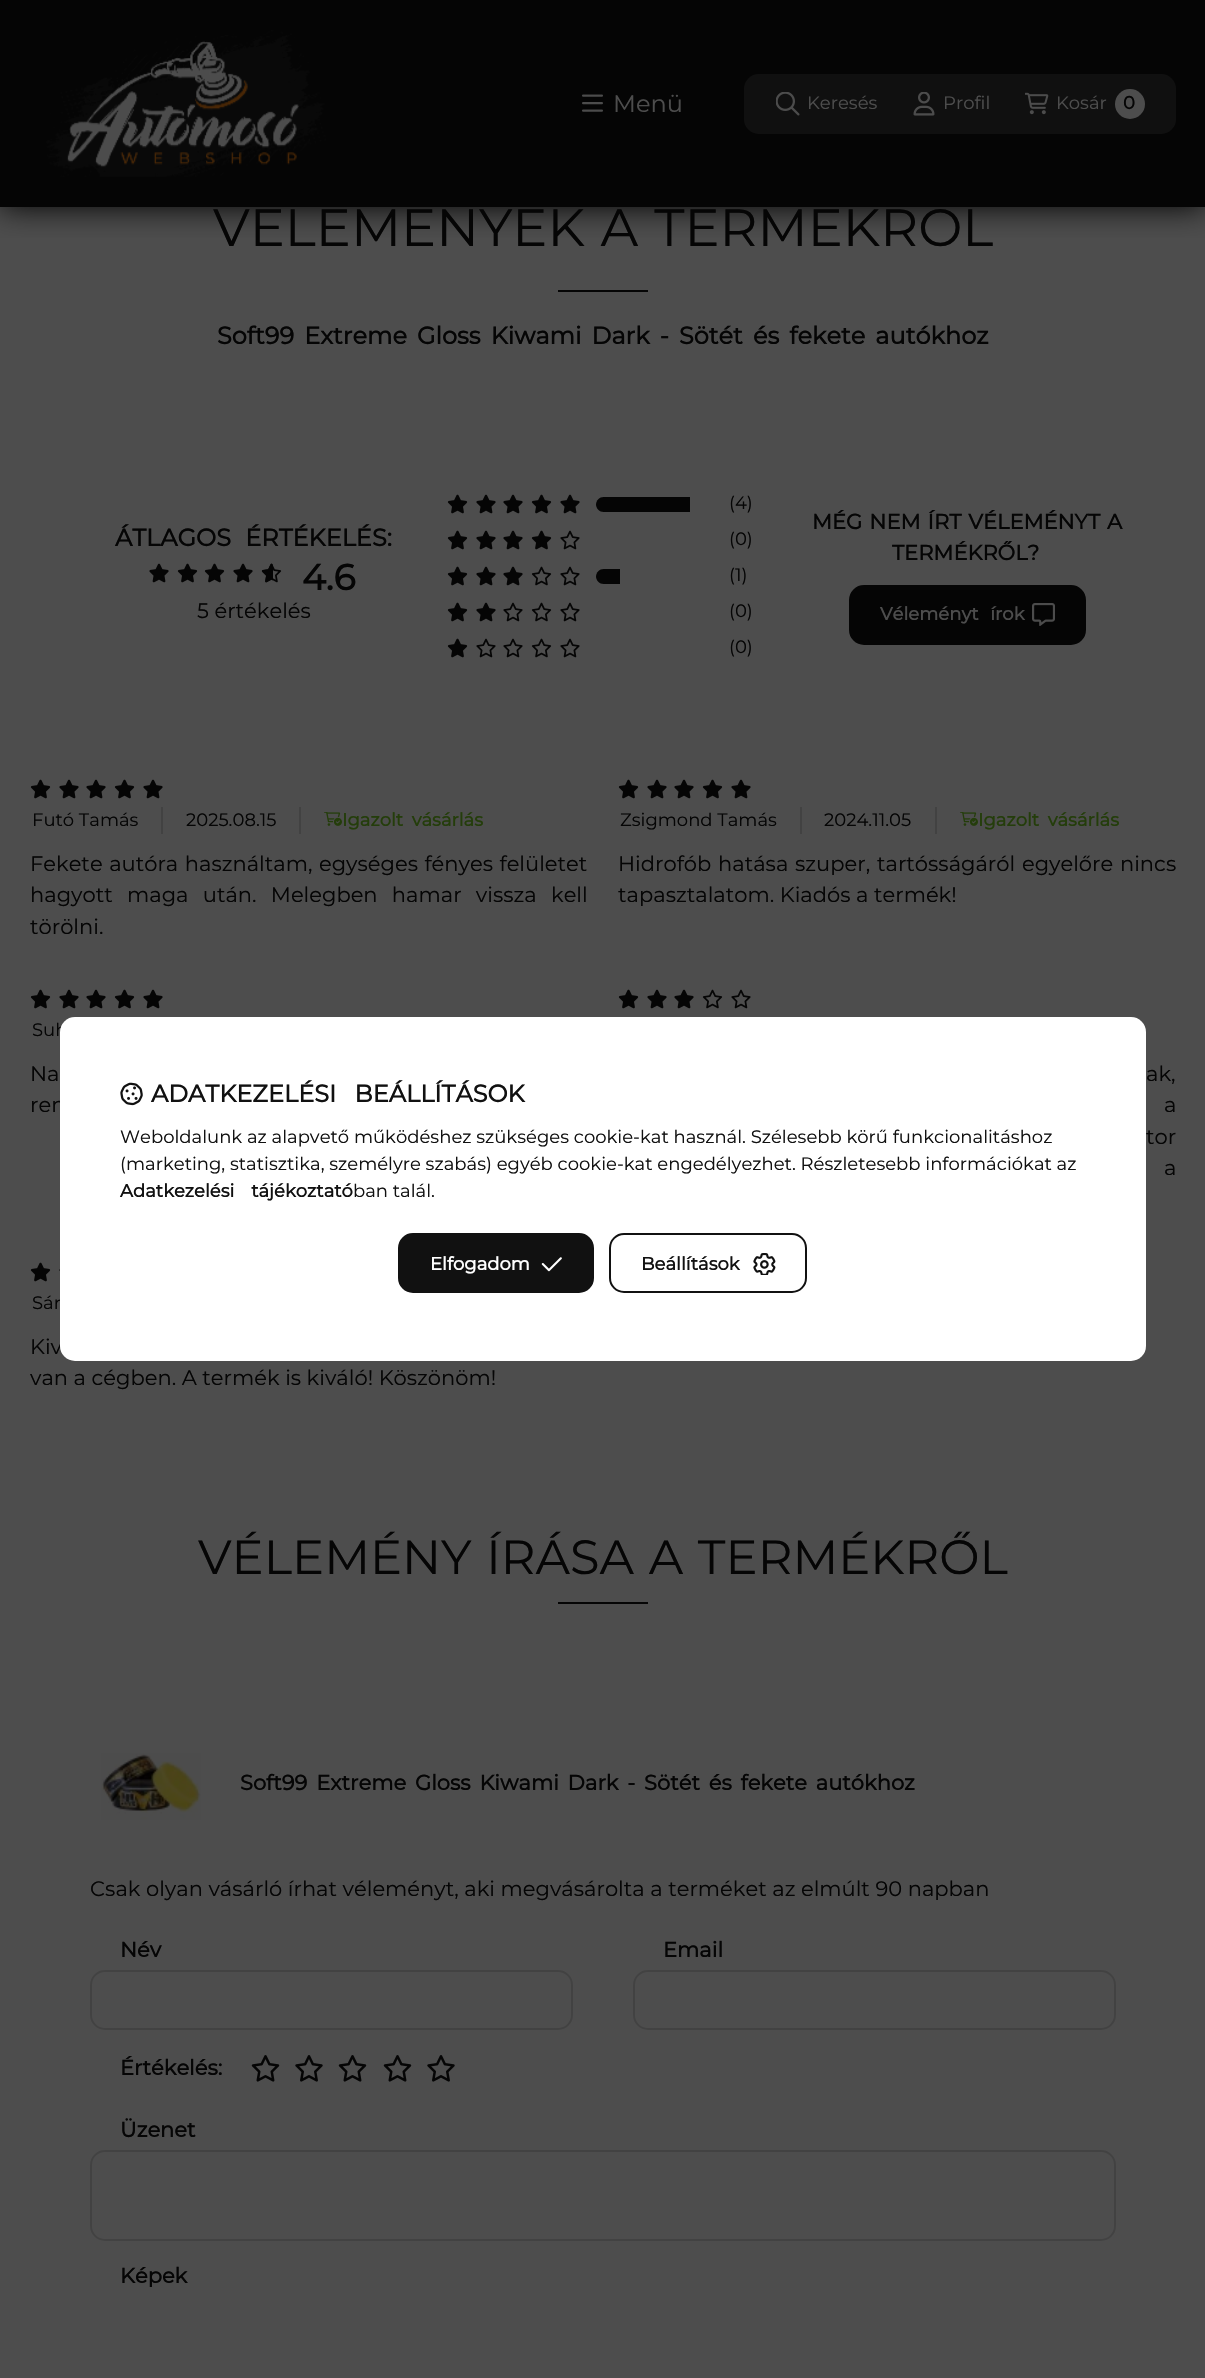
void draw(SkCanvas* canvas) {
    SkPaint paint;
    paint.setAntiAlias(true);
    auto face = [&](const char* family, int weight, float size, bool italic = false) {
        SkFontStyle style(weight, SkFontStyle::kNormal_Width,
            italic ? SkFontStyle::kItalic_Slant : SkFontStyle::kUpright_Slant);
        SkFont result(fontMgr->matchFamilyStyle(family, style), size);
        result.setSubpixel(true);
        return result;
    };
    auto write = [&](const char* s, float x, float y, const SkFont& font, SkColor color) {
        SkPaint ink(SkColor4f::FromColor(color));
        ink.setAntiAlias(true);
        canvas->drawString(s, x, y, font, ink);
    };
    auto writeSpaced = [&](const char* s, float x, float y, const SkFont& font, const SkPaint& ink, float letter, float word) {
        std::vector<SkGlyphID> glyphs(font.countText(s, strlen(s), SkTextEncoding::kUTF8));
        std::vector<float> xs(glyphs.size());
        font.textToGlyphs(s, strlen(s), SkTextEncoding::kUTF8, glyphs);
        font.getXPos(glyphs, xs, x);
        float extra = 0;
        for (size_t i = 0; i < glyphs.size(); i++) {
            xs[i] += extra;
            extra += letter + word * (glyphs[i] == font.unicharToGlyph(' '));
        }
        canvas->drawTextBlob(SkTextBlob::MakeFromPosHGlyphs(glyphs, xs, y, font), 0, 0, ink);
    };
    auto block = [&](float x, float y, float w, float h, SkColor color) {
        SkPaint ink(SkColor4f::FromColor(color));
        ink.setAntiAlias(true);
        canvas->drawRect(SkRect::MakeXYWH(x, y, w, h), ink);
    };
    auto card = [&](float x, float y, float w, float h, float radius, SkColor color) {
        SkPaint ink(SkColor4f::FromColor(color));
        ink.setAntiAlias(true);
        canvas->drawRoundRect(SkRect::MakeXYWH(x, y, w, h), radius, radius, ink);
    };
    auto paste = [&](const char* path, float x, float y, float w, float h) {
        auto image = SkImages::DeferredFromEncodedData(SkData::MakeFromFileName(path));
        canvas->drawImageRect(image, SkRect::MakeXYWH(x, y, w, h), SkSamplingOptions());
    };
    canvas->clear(SkColorSetRGB(77, 77, 77));
    block(0, 0, 1205, 207, SkColorSetRGB(5, 5, 5));
    canvas->save();
    canvas->clipRect(SkRect::MakeXYWH(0, 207, 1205, 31));
    paint.setColor(SK_ColorBLACK);
    paint.setMaskFilter(SkMaskFilter::MakeBlur(kNormal_SkBlurStyle, 15));
    canvas->drawRect(SkRect::MakeXYWH(0, 0, 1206, 207), paint);
    paint.setMaskFilter(nullptr);
    canvas->restore();
    paste("pic1.png", 46, 30, 280, 147);
    paste("pic2.png", 582, 94, 21, 18);
    auto kFont1 = face("Montserrat", 400, 24);
    write("Menü", 613, 112, kFont1, SkColorSetRGB(77, 77, 77));
    card(744, 74, 432, 60, 15, SkColorSetRGB(16, 16, 16));
    paste("pic3.png", 776, 92, 24, 24);
    auto kFont2 = face("Montserrat", 400, 18);
    write("Keresés", 807, 109, kFont2, SkColorSetRGB(77, 77, 77));
    paste("pic4.png", 913, 92, 22, 24);
    write("Profil", 943, 109, kFont2, SkColorSetRGB(77, 77, 77));
    paste("pic5.png", 1025, 92, 24, 23);
    write("Kosár", 1056, 109, kFont2, SkColorSetRGB(77, 77, 77));
    paint.setColor(SkColorSetRGB(77, 77, 77));
    canvas->drawCircle(1130, 104, 15, paint);
    auto kFont3 = face("Montserrat", 700, 18);
    write("0", 1123, 109, kFont3, SkColorSetRGB(5, 5, 5));
    auto kFont4 = face("Montserrat", 400, 52.5f);
    paint.setColor(SkColorSetRGB(5, 5, 5));
    writeSpaced("VÉLEMÉNYEK A TERMÉKRŐL", 213, 246, kFont4, paint, 0, 2);
    block(558, 290, 90, 2, SkColorSetRGB(5, 5, 5));
    auto kFont5 = face("Montserrat", 700, 24);
    writeSpaced("Soft99 Extreme Gloss Kiwami Dark - Sötét és fekete autókhoz", 217, 344, kFont5, paint, 0, 3.75f);
    writeSpaced("ÁTLAGOS ÉRTÉKELÉS:", 115, 546, kFont5, paint, 0, 8);
    paste("pic6.png", 149, 563, 20, 20);
    paste("pic7.png", 177, 563, 21, 20);
    paste("pic7.png", 204, 563, 21, 20);
    paste("pic6.png", 233, 563, 20, 20);
    paste("pic8.png", 261, 563, 21, 20);
    paste("pic9.png", 261, 563, 12, 20);
    auto kFont6 = face("Montserrat", 700, 36);
    write("4.6", 302, 590, kFont6, SkColorSetRGB(5, 5, 5));
    auto kFont7 = face("Montserrat", 400, 21);
    write("5 értékelés", 197, 618, kFont7, SkColorSetRGB(5, 5, 5));
    paste("pic7.png", 447, 494, 21, 20);
    paste("pic6.png", 476, 494, 20, 20);
    paste("pic6.png", 503, 494, 20, 20);
    paste("pic7.png", 531, 494, 21, 20);
    paste("pic6.png", 560, 494, 20, 20);
    canvas->drawPath(SkPathBuilder().moveTo(603.5f, 497).lineTo(690, 497).lineTo(690, 512).lineTo(603.5f, 512).cubicTo(599.5f, 512, 596, 508.5f, 596, 504.5f).cubicTo(596, 500.5f, 599.5f, 497, 603.5f, 497).close().detach(), paint);
    write("(4)", 729, 509, kFont2, SkColorSetRGB(5, 5, 5));
    paste("pic7.png", 447, 530, 21, 20);
    paste("pic6.png", 476, 530, 20, 20);
    paste("pic6.png", 503, 530, 20, 20);
    paste("pic7.png", 531, 530, 21, 20);
    paste("pic10.png", 560, 530, 20, 20);
    write("(0)", 729, 545, kFont2, SkColorSetRGB(5, 5, 5));
    paste("pic7.png", 447, 566, 21, 20);
    paste("pic6.png", 476, 566, 20, 20);
    paste("pic6.png", 503, 566, 20, 20);
    paste("pic8.png", 531, 566, 21, 20);
    paste("pic10.png", 560, 566, 20, 20);
    canvas->drawPath(SkPathBuilder().moveTo(603.5f, 569).lineTo(620, 569).lineTo(620, 584).lineTo(603.5f, 584).cubicTo(599.5f, 584, 596, 580.5f, 596, 576.5f).cubicTo(596, 572.5f, 599.5f, 569, 603.5f, 569).close().detach(), paint);
    write("(1)", 729, 581, kFont2, SkColorSetRGB(5, 5, 5));
    paste("pic7.png", 447, 602, 21, 20);
    paste("pic6.png", 476, 602, 20, 20);
    paste("pic10.png", 503, 602, 20, 20);
    paste("pic8.png", 531, 602, 21, 20);
    paste("pic10.png", 560, 602, 20, 20);
    write("(0)", 729, 617, kFont2, SkColorSetRGB(5, 5, 5));
    paste("pic7.png", 447, 638, 21, 20);
    paste("pic10.png", 476, 638, 20, 20);
    paste("pic10.png", 503, 638, 20, 20);
    paste("pic8.png", 531, 638, 21, 20);
    paste("pic10.png", 560, 638, 20, 20);
    write("(0)", 729, 653, kFont2, SkColorSetRGB(5, 5, 5));
    auto kFont8 = face("Montserrat", 700, 21);
    writeSpaced("MÉG NEM ÍRT VÉLEMÉNYT A", 812, 529, kFont8, paint, 0, 1.5f);
    write("TERMÉKRŐL?", 892, 560, kFont8, SkColorSetRGB(5, 5, 5));
    canvas->drawRoundRect(SkRect::MakeXYWH(850, 586, 235, 58), 14, 14, paint);
    paint.setStyle(SkPaint::kStroke_Style);
    paint.setStrokeWidth(2);
    canvas->drawRoundRect(SkRect::MakeXYWH(850, 586, 235, 58), 14, 14, paint);
    paint.setStyle(SkPaint::kFill_Style);
    paint.setColor(SkColorSetRGB(77, 77, 77));
    writeSpaced("Véleményt írok", 880, 620, kFont3, paint, 0, 7);
    paste("pic11.png", 1032, 603, 23, 23);
    paste("pic7.png", 30, 779, 21, 20);
    paste("pic6.png", 59, 779, 20, 20);
    paste("pic6.png", 86, 779, 20, 20);
    paste("pic7.png", 114, 779, 21, 20);
    paste("pic6.png", 143, 779, 20, 20);
    write("Futó Tamás", 32, 826, kFont2, SkColorSetRGB(5, 5, 5));
    block(161, 807, 2, 27, SkColorSetRGB(66, 66, 66));
    write("2025.08.15", 186, 826, kFont2, SkColorSetRGB(5, 5, 5));
    block(299, 807, 2, 27, SkColorSetRGB(66, 66, 66));
    paste("pic12.png", 324, 812, 18, 14);
    paint.setColor(SkColorSetRGB(36, 61, 11));
    writeSpaced("Igazolt vásárlás", 342, 826, kFont3, paint, 0, 3.75f);
    paint.setColor(SkColorSetRGB(5, 5, 5));
    writeSpaced("Fekete autóra használtam, egységes fényes felületet", 30, 871, kFont7, paint, 0, 1);
    writeSpaced("hagyott maga után. Melegben hamar vissza kell", 30, 902, kFont7, paint, 0, 8.75f);
    write("törölni.", 30, 934, kFont7, SkColorSetRGB(5, 5, 5));
    paste("pic7.png", 618, 779, 21, 20);
    paste("pic6.png", 647, 779, 20, 20);
    paste("pic6.png", 674, 779, 20, 20);
    paste("pic7.png", 702, 779, 21, 20);
    paste("pic6.png", 731, 779, 20, 20);
    write("Zsigmond Tamás", 620, 826, kFont2, SkColorSetRGB(5, 5, 5));
    block(800, 807, 2, 27, SkColorSetRGB(66, 66, 66));
    write("2024.11.05", 824, 826, kFont2, SkColorSetRGB(5, 5, 5));
    block(935, 807, 2, 27, SkColorSetRGB(66, 66, 66));
    paste("pic12.png", 960, 812, 18, 14);
    paint.setColor(SkColorSetRGB(36, 61, 11));
    writeSpaced("Igazolt vásárlás", 978, 826, kFont3, paint, 0, 3.75f);
    paint.setColor(SkColorSetRGB(5, 5, 5));
    writeSpaced("Hidrofób hatása szuper, tartósságáról egyelőre nincs", 618, 871, kFont7, paint, 0, 1.25f);
    write("tapasztalatom. Kiadós a termék!", 618, 902, kFont7, SkColorSetRGB(5, 5, 5));
    paste("pic7.png", 30, 989, 21, 20);
    paste("pic6.png", 59, 989, 20, 20);
    paste("pic6.png", 86, 989, 20, 20);
    paste("pic7.png", 114, 989, 21, 20);
    paste("pic6.png", 143, 989, 20, 20);
    write("Suh", 32, 1036, kFont2, SkColorSetRGB(5, 5, 5));
    writeSpaced("Na", 30, 1081, kFont7, paint, 0, 3);
    write("ren", 30, 1112, kFont7, SkColorSetRGB(5, 5, 5));
    paste("pic7.png", 618, 989, 21, 20);
    paste("pic6.png", 647, 989, 20, 20);
    paste("pic6.png", 674, 989, 20, 20);
    paste("pic8.png", 702, 989, 21, 20);
    paste("pic10.png", 731, 989, 20, 20);
    writeSpaced("ak,", 1146, 1081, kFont7, paint, 0, 1);
    writeSpaced("a", 1164, 1112, kFont7, paint, 0, 10);
    writeSpaced("tor", 1146, 1144, kFont7, paint, 0, 15);
    writeSpaced("a", 1164, 1175, kFont7, paint, 0, 12);
    paste("pic7.png", 30, 1262, 21, 20);
    paste("pic13.png", 59, 1269, 1, 2);
    write("Sár", 32, 1309, kFont2, SkColorSetRGB(5, 5, 5));
    writeSpaced("Kiv", 30, 1354, kFont7, paint, 0, 6);
    write("van a cégben. A termék is kiváló! Köszönöm!", 30, 1385, kFont7, SkColorSetRGB(5, 5, 5));
    auto kFont9 = face("Montserrat", 400, 48);
    writeSpaced("VÉLEMÉNY ÍRÁSA A TERMÉKRŐL", 198, 1574, kFont9, paint, 0, 2);
    block(558, 1602, 90, 2, SkColorSetRGB(5, 5, 5));
    paste("pic14.png", 101, 1753, 100, 67);
    writeSpaced("Soft99 Extreme Gloss Kiwami Dark - Sötét és fekete autókhoz", 240, 1790, kFont8, paint, 0, 3.25f);
    write("Csak olyan vásárló írhat véleményt, aki megvásárolta a terméket az elmúlt 90 napban", 90, 1896, kFont7, SkColorSetRGB(5, 5, 5));
    write("Név", 120, 1957, kFont8, SkColorSetRGB(5, 5, 5));
    paint.setStyle(SkPaint::kStroke_Style);
    paint.setColor(SkColorSetRGB(66, 66, 66));
    canvas->drawRoundRect(SkRect::MakeXYWH(91, 1971, 481, 58), 14, 14, paint);
    write("Email", 663, 1957, kFont8, SkColorSetRGB(5, 5, 5));
    canvas->drawRoundRect(SkRect::MakeXYWH(634, 1971, 481, 58), 14, 14, paint);
    write("Értékelés:", 120, 2075, kFont8, SkColorSetRGB(5, 5, 5));
    paste("pic15.png", 251, 2055, 29, 27);
    paste("pic16.png", 295, 2055, 28, 27);
    paste("pic15.png", 338, 2055, 29, 27);
    paste("pic15.png", 383, 2055, 29, 27);
    paste("pic16.png", 427, 2055, 28, 27);
    write("Üzenet", 120, 2137, kFont8, SkColorSetRGB(5, 5, 5));
    canvas->drawRoundRect(SkRect::MakeXYWH(91, 2151, 1024, 89), 14, 14, paint);
    write("Képek", 120, 2283, kFont8, SkColorSetRGB(5, 5, 5));
    card(60, 1017, 1086, 344, 15, SK_ColorWHITE);
    paste("pic17.png", 120, 1082, 23, 24);
    paint.setStyle(SkPaint::kFill_Style);
    paint.setColor(SkColorSetRGB(17, 17, 17));
    writeSpaced("ADATKEZELÉSI BEÁLLÍTÁSOK", 151, 1102, kFont5, paint, 0, 12);
    write("Weboldalunk az alapvető működéshez szükséges cookie-kat használ. Szélesebb körű funkcionalitáshoz", 120, 1143, kFont2, SkColorSetRGB(17, 17, 17));
    write("(marketing, statisztika, személyre szabás) egyéb cookie-kat engedélyezhet. Részletesebb információkat az", 120, 1170, kFont2, SkColorSetRGB(17, 17, 17));
    writeSpaced("Adatkezelési tájékoztató", 120, 1197, kFont3, paint, 0, 12);
    write("ban talál.", 353, 1197, kFont2, SkColorSetRGB(17, 17, 17));
    canvas->drawRoundRect(SkRect::MakeXYWH(399, 1234, 194, 58), 14, 14, paint);
    paint.setStyle(SkPaint::kStroke_Style);
    canvas->drawRoundRect(SkRect::MakeXYWH(399, 1234, 194, 58), 14, 14, paint);
    write("Elfogadom", 430, 1270, kFont3, SK_ColorWHITE);
    paste("pic18.png", 541, 1257, 21, 15);
    canvas->drawRoundRect(SkRect::MakeXYWH(610, 1234, 196, 58), 14, 14, paint);
    write("Beállítások", 641, 1270, kFont3, SkColorSetRGB(17, 17, 17));
    paste("pic19.png", 753, 1253, 23, 22);
}
